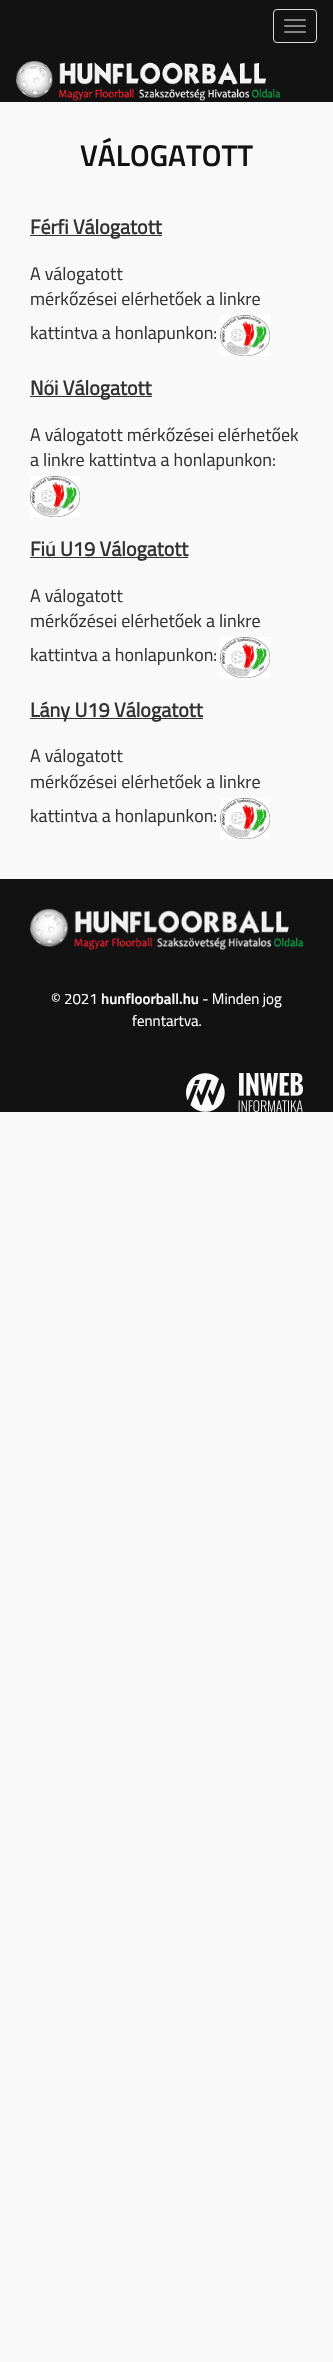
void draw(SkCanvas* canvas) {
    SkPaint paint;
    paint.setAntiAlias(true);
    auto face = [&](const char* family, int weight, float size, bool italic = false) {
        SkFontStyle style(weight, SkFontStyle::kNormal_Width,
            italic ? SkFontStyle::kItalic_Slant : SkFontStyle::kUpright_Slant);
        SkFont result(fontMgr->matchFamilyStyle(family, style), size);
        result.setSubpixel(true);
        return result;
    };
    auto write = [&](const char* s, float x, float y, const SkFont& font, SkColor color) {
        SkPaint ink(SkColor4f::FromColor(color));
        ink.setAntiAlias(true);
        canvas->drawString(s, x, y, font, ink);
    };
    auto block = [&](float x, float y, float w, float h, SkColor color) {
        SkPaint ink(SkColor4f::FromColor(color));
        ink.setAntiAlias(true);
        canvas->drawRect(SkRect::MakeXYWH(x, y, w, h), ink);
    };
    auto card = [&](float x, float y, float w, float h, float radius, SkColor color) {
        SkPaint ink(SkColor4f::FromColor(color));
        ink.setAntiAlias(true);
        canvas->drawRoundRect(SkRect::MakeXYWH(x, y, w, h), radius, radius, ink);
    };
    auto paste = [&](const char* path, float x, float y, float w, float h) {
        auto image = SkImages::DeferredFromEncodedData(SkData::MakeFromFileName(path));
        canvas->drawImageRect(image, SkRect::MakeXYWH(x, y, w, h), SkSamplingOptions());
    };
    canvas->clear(SkColorSetRGB(249, 249, 249));
    block(0, 0, 333, 102, SkColorSetRGB(18, 18, 18));
    paint.setStyle(SkPaint::kStroke_Style);
    paint.setStrokeWidth(1);
    paint.setColor(SkColorSetRGB(221, 221, 221));
    canvas->drawRoundRect(SkRect::MakeXYWH(273.5f, 9.5f, 43, 33), 3.5f, 3.5f, paint);
    card(284, 19, 22, 2, 1, SkColorSetRGB(136, 136, 136));
    card(284, 25, 22, 2, 1, SkColorSetRGB(136, 136, 136));
    card(284, 31, 22, 2, 1, SkColorSetRGB(136, 136, 136));
    paste("pic1.png", 16, 61, 264, 40);
    auto kFont1 = face("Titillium", 600, 30);
    write("VÁLOGATOTT", 80, 166, kFont1, SkColorSetRGB(18, 18, 18));
    block(30, 235, 132, 1, SkColorSetRGB(51, 51, 51));
    auto kFont2 = face("Titillium", 700, 20);
    write("Férfi Válogatott", 30, 234, kFont2, SkColorSetRGB(51, 51, 51));
    auto kFont3 = face("Titillium", 400, 18);
    write("A válogatott", 30, 280, kFont3, SkColorSetRGB(51, 51, 51));
    write("mérkőzései elérhetőek a linkre", 30, 305, kFont3, SkColorSetRGB(51, 51, 51));
    write("kattintva a honlapunkon:", 30, 339, kFont3, SkColorSetRGB(51, 51, 51));
    paste("pic2.png", 220, 315, 50, 41);
    block(30, 396, 122, 1, SkColorSetRGB(51, 51, 51));
    write("Női Válogatott", 30, 395, kFont2, SkColorSetRGB(51, 51, 51));
    write("A válogatott mérkőzései elérhetőek", 30, 441, kFont3, SkColorSetRGB(51, 51, 51));
    write("a linkre kattintva a honlapunkon:", 30, 466, kFont3, SkColorSetRGB(51, 51, 51));
    paste("pic2.png", 30, 476, 50, 41);
    block(30, 557, 158, 1, SkColorSetRGB(51, 51, 51));
    write("Fiú U19 Válogatott", 30, 556, kFont2, SkColorSetRGB(51, 51, 51));
    write("A válogatott", 30, 602, kFont3, SkColorSetRGB(51, 51, 51));
    write("mérkőzései elérhetőek a linkre", 30, 627, kFont3, SkColorSetRGB(51, 51, 51));
    write("kattintva a honlapunkon:", 30, 661, kFont3, SkColorSetRGB(51, 51, 51));
    paste("pic2.png", 220, 637, 50, 41);
    block(30, 718, 173, 1, SkColorSetRGB(51, 51, 51));
    write("Lány U19 Válogatott", 30, 717, kFont2, SkColorSetRGB(51, 51, 51));
    write("A válogatott", 30, 762, kFont3, SkColorSetRGB(51, 51, 51));
    write("mérkőzései elérhetőek a linkre", 30, 788, kFont3, SkColorSetRGB(51, 51, 51));
    write("kattintva a honlapunkon:", 30, 822, kFont3, SkColorSetRGB(51, 51, 51));
    paste("pic2.png", 220, 798, 50, 41);
    block(0, 879, 333, 233, SkColorSetRGB(18, 18, 18));
    paste("pic3.png", 30, 908, 273, 43);
    auto kFont4 = face("Titillium", 400, 15);
    write("© 2021", 51, 1004, kFont4, SK_ColorWHITE);
    auto kFont5 = face("Titillium", 600, 15);
    write("hunfloorball.hu", 101, 1004, kFont5, SK_ColorWHITE);
    write("- Minden jog", 202, 1004, kFont4, SK_ColorWHITE);
    write("fenntartva.", 132, 1026, kFont4, SK_ColorWHITE);
    paste("pic4.png", 186, 1073, 117, 39);
}
